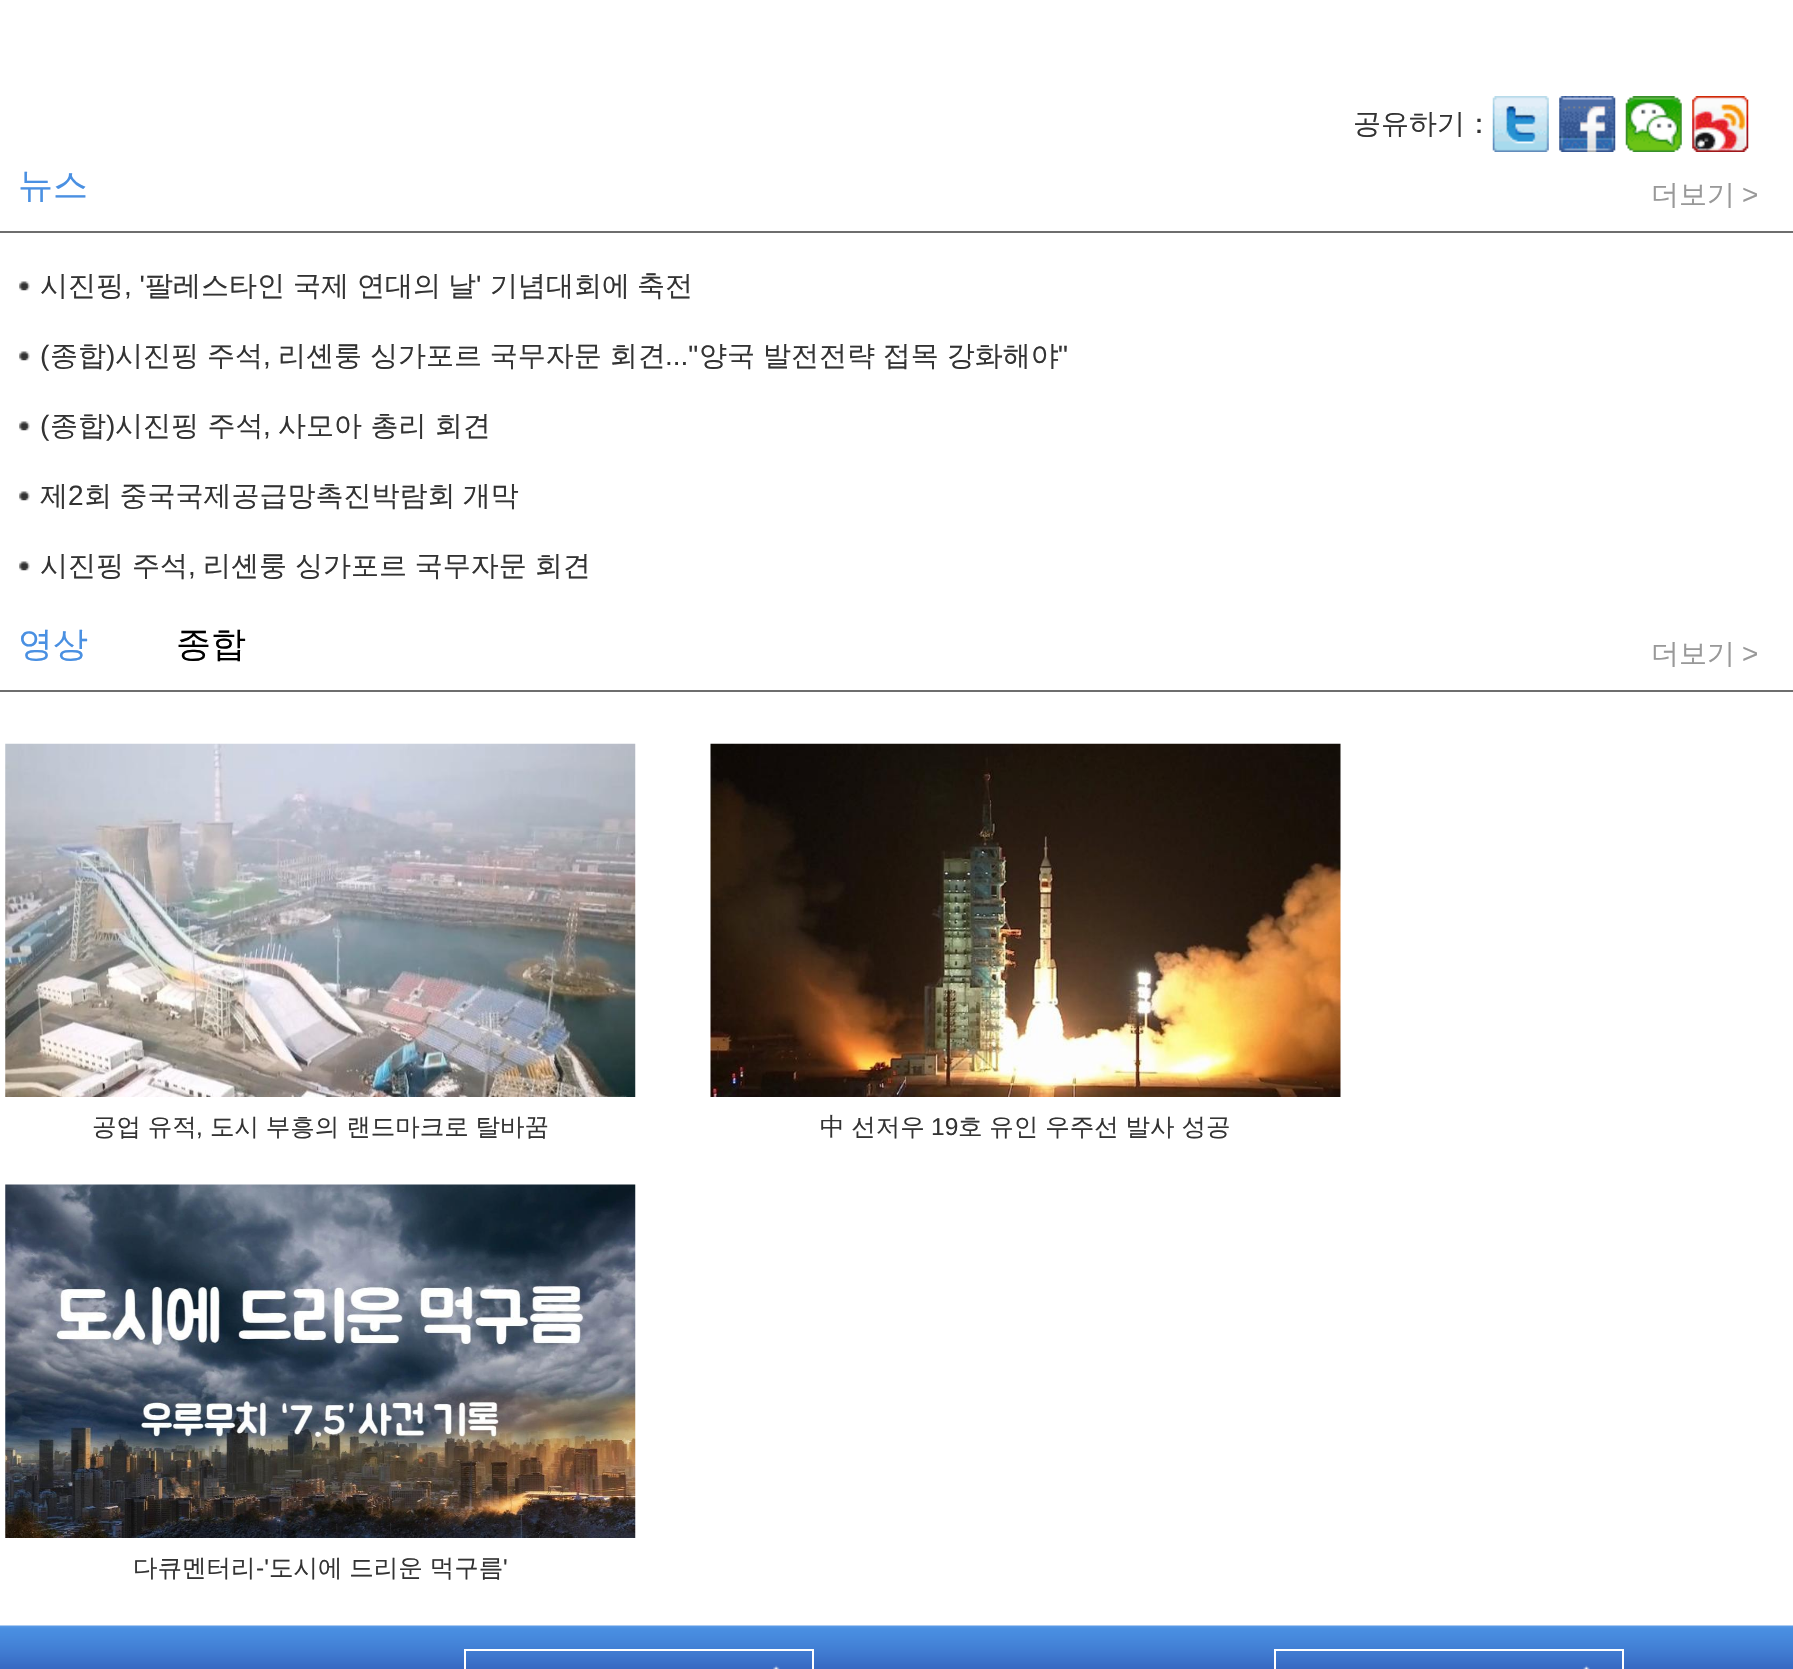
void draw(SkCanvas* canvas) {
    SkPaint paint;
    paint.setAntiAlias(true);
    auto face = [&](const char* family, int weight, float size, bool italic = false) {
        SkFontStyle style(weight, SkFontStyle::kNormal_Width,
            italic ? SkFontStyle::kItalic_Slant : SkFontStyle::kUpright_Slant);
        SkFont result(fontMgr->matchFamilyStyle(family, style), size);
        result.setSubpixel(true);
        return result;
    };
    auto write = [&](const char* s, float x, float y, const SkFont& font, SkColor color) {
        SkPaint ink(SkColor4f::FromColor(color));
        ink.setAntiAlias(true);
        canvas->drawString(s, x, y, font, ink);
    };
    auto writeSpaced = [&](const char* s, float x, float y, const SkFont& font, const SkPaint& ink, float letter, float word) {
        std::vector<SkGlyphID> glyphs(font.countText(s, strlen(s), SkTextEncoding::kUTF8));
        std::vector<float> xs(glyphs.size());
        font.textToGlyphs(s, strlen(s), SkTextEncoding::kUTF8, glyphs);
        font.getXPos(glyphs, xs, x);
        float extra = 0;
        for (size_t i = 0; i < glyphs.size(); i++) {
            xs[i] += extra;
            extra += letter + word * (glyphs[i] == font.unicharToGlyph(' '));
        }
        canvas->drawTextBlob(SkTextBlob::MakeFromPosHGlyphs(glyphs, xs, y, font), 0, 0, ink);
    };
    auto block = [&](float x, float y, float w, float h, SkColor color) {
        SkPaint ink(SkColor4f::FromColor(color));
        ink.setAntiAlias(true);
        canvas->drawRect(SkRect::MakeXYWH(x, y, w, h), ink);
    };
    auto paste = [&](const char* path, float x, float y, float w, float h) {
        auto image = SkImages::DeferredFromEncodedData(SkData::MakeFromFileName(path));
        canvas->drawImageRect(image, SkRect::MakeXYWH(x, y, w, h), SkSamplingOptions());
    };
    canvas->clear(SK_ColorWHITE);
    auto kFont1 = face("WenQuanYi Zen Hei", 500, 28);
    write("공유하기：", 1353, 133, kFont1, SkColorSetRGB(51, 51, 51));
    paste("pic1.png", 1492, 96, 57, 56);
    paste("pic2.png", 1559, 96, 57, 56);
    paste("pic3.png", 1625, 96, 57, 56);
    paste("pic4.png", 1692, 96, 57, 56);
    block(0, 231, 1793, 2, SkColorSetRGB(110, 110, 110));
    auto kFont2 = face("WenQuanYi Zen Hei", 500, 35);
    write("뉴스", 18, 197, kFont2, SkColorSetRGB(74, 144, 226));
    write("더보기", 1651, 204, kFont1, SkColorSetRGB(153, 153, 153));
    auto kFont3 = face("Liberation Sans", 400, 28);
    write(">", 1742, 204, kFont3, SkColorSetRGB(153, 153, 153));
    paste("pic5.png", 19, 281, 11, 10);
    write("시진핑", 40, 295, kFont1, SkColorSetRGB(51, 51, 51));
    write(", '", 124, 295, kFont3, SkColorSetRGB(51, 51, 51));
    write("팔레스타인", 145, 295, kFont1, SkColorSetRGB(51, 51, 51));
    write("국제", 293, 295, kFont1, SkColorSetRGB(51, 51, 51));
    write("연대의", 357, 295, kFont1, SkColorSetRGB(51, 51, 51));
    write("날", 448, 295, kFont1, SkColorSetRGB(51, 51, 51));
    write("'", 476, 295, kFont3, SkColorSetRGB(51, 51, 51));
    write("기념대회에", 490, 295, kFont1, SkColorSetRGB(51, 51, 51));
    write("축전", 637, 295, kFont1, SkColorSetRGB(51, 51, 51));
    paste("pic5.png", 19, 351, 11, 10);
    write("(", 40, 365, kFont3, SkColorSetRGB(51, 51, 51));
    write("종합", 50, 365, kFont1, SkColorSetRGB(51, 51, 51));
    write(")", 106, 365, kFont3, SkColorSetRGB(51, 51, 51));
    paint.setColor(SkColorSetRGB(51, 51, 51));
    writeSpaced("시진핑 주석", 115, 365, kFont1, paint, 0, -0.5f);
    writeSpaced("리셴룽 싱가포르 국무자문 회견", 278, 365, kFont1, paint, 0, -0.5f);
    write("...\"", 665, 365, kFont3, SkColorSetRGB(51, 51, 51));
    writeSpaced("양국 발전전략 접목 강화해야", 699, 365, kFont1, paint, 0, -0.5f);
    write("\"", 1058, 365, kFont3, SkColorSetRGB(51, 51, 51));
    write(",", 263, 365, kFont3, SkColorSetRGB(51, 51, 51));
    paste("pic5.png", 19, 421, 11, 10);
    write("(", 40, 435, kFont3, SkColorSetRGB(51, 51, 51));
    write("종합", 50, 435, kFont1, SkColorSetRGB(51, 51, 51));
    write(")", 106, 435, kFont3, SkColorSetRGB(51, 51, 51));
    write("시진핑 주석", 115, 435, kFont1, SkColorSetRGB(51, 51, 51));
    write(",", 263, 435, kFont3, SkColorSetRGB(51, 51, 51));
    write("사모아 총리 회견", 278, 435, kFont1, SkColorSetRGB(51, 51, 51));
    paste("pic5.png", 19, 491, 11, 10);
    write("제", 40, 505, kFont1, SkColorSetRGB(51, 51, 51));
    write("2", 68, 505, kFont3, SkColorSetRGB(51, 51, 51));
    writeSpaced("회 중국국제공급망촉진박람회 개막", 84, 505, kFont1, paint, 0, -1);
    paste("pic5.png", 19, 561, 11, 10);
    writeSpaced("시진핑 주석", 40, 575, kFont1, paint, 0, -0.5f);
    write(",", 188, 575, kFont3, SkColorSetRGB(51, 51, 51));
    writeSpaced("리셴룽 싱가포르 국무자문 회견", 203, 575, kFont1, paint, 0, -0.5f);
    block(0, 690, 1793, 2, SkColorSetRGB(110, 110, 110));
    write("영상", 18, 656, kFont2, SkColorSetRGB(74, 144, 226));
    write("종합", 176, 656, kFont2, SK_ColorBLACK);
    write("더보기", 1651, 663, kFont1, SkColorSetRGB(153, 153, 153));
    write(">", 1742, 663, kFont3, SkColorSetRGB(153, 153, 153));
    paste("pic6.png", 5, 743, 631, 354);
    auto kFont4 = face("WenQuanYi Zen Hei", 500, 24.5f);
    writeSpaced("공업 유적", 92, 1135, kFont4, paint, 0, -0.5f);
    auto kFont5 = face("Liberation Sans", 400, 24.5f);
    write(",", 196, 1135, kFont5, SkColorSetRGB(51, 51, 51));
    writeSpaced("도시 부흥의 랜드마크로 탈바꿈", 210, 1135, kFont4, paint, 0, -0.5f);
    paste("pic7.png", 710, 743, 631, 354);
    writeSpaced("中 선저우", 820, 1135, kFont4, paint, 0, -0.5f);
    write("19", 931, 1135, kFont5, SkColorSetRGB(51, 51, 51));
    writeSpaced("호 유인 우주선 발사 성공", 958, 1135, kFont4, paint, 0, -0.5f);
    paste("pic8.png", 5, 1184, 631, 354);
    write("다큐멘터리", 133, 1576, kFont4, SkColorSetRGB(51, 51, 51));
    write("-'", 256, 1576, kFont5, SkColorSetRGB(51, 51, 51));
    writeSpaced("도시에 드리운 먹구름", 269, 1576, kFont4, paint, 0, -0.5f);
    write("'", 503, 1576, kFont5, SkColorSetRGB(51, 51, 51));
    paste("pic9.png", 0, 1625, 1793, 44);
    paste("pic10.png", 773, 1665, 7, 4);
    paint.setStyle(SkPaint::kStroke_Style);
    paint.setStrokeWidth(2);
    paint.setColor(SK_ColorWHITE);
    canvas->drawRect(SkRect::MakeXYWH(465, 1650, 348, 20), paint);
    paste("pic11.png", 1583, 1665, 7, 4);
    canvas->drawRect(SkRect::MakeXYWH(1275, 1650, 348, 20), paint);
}
